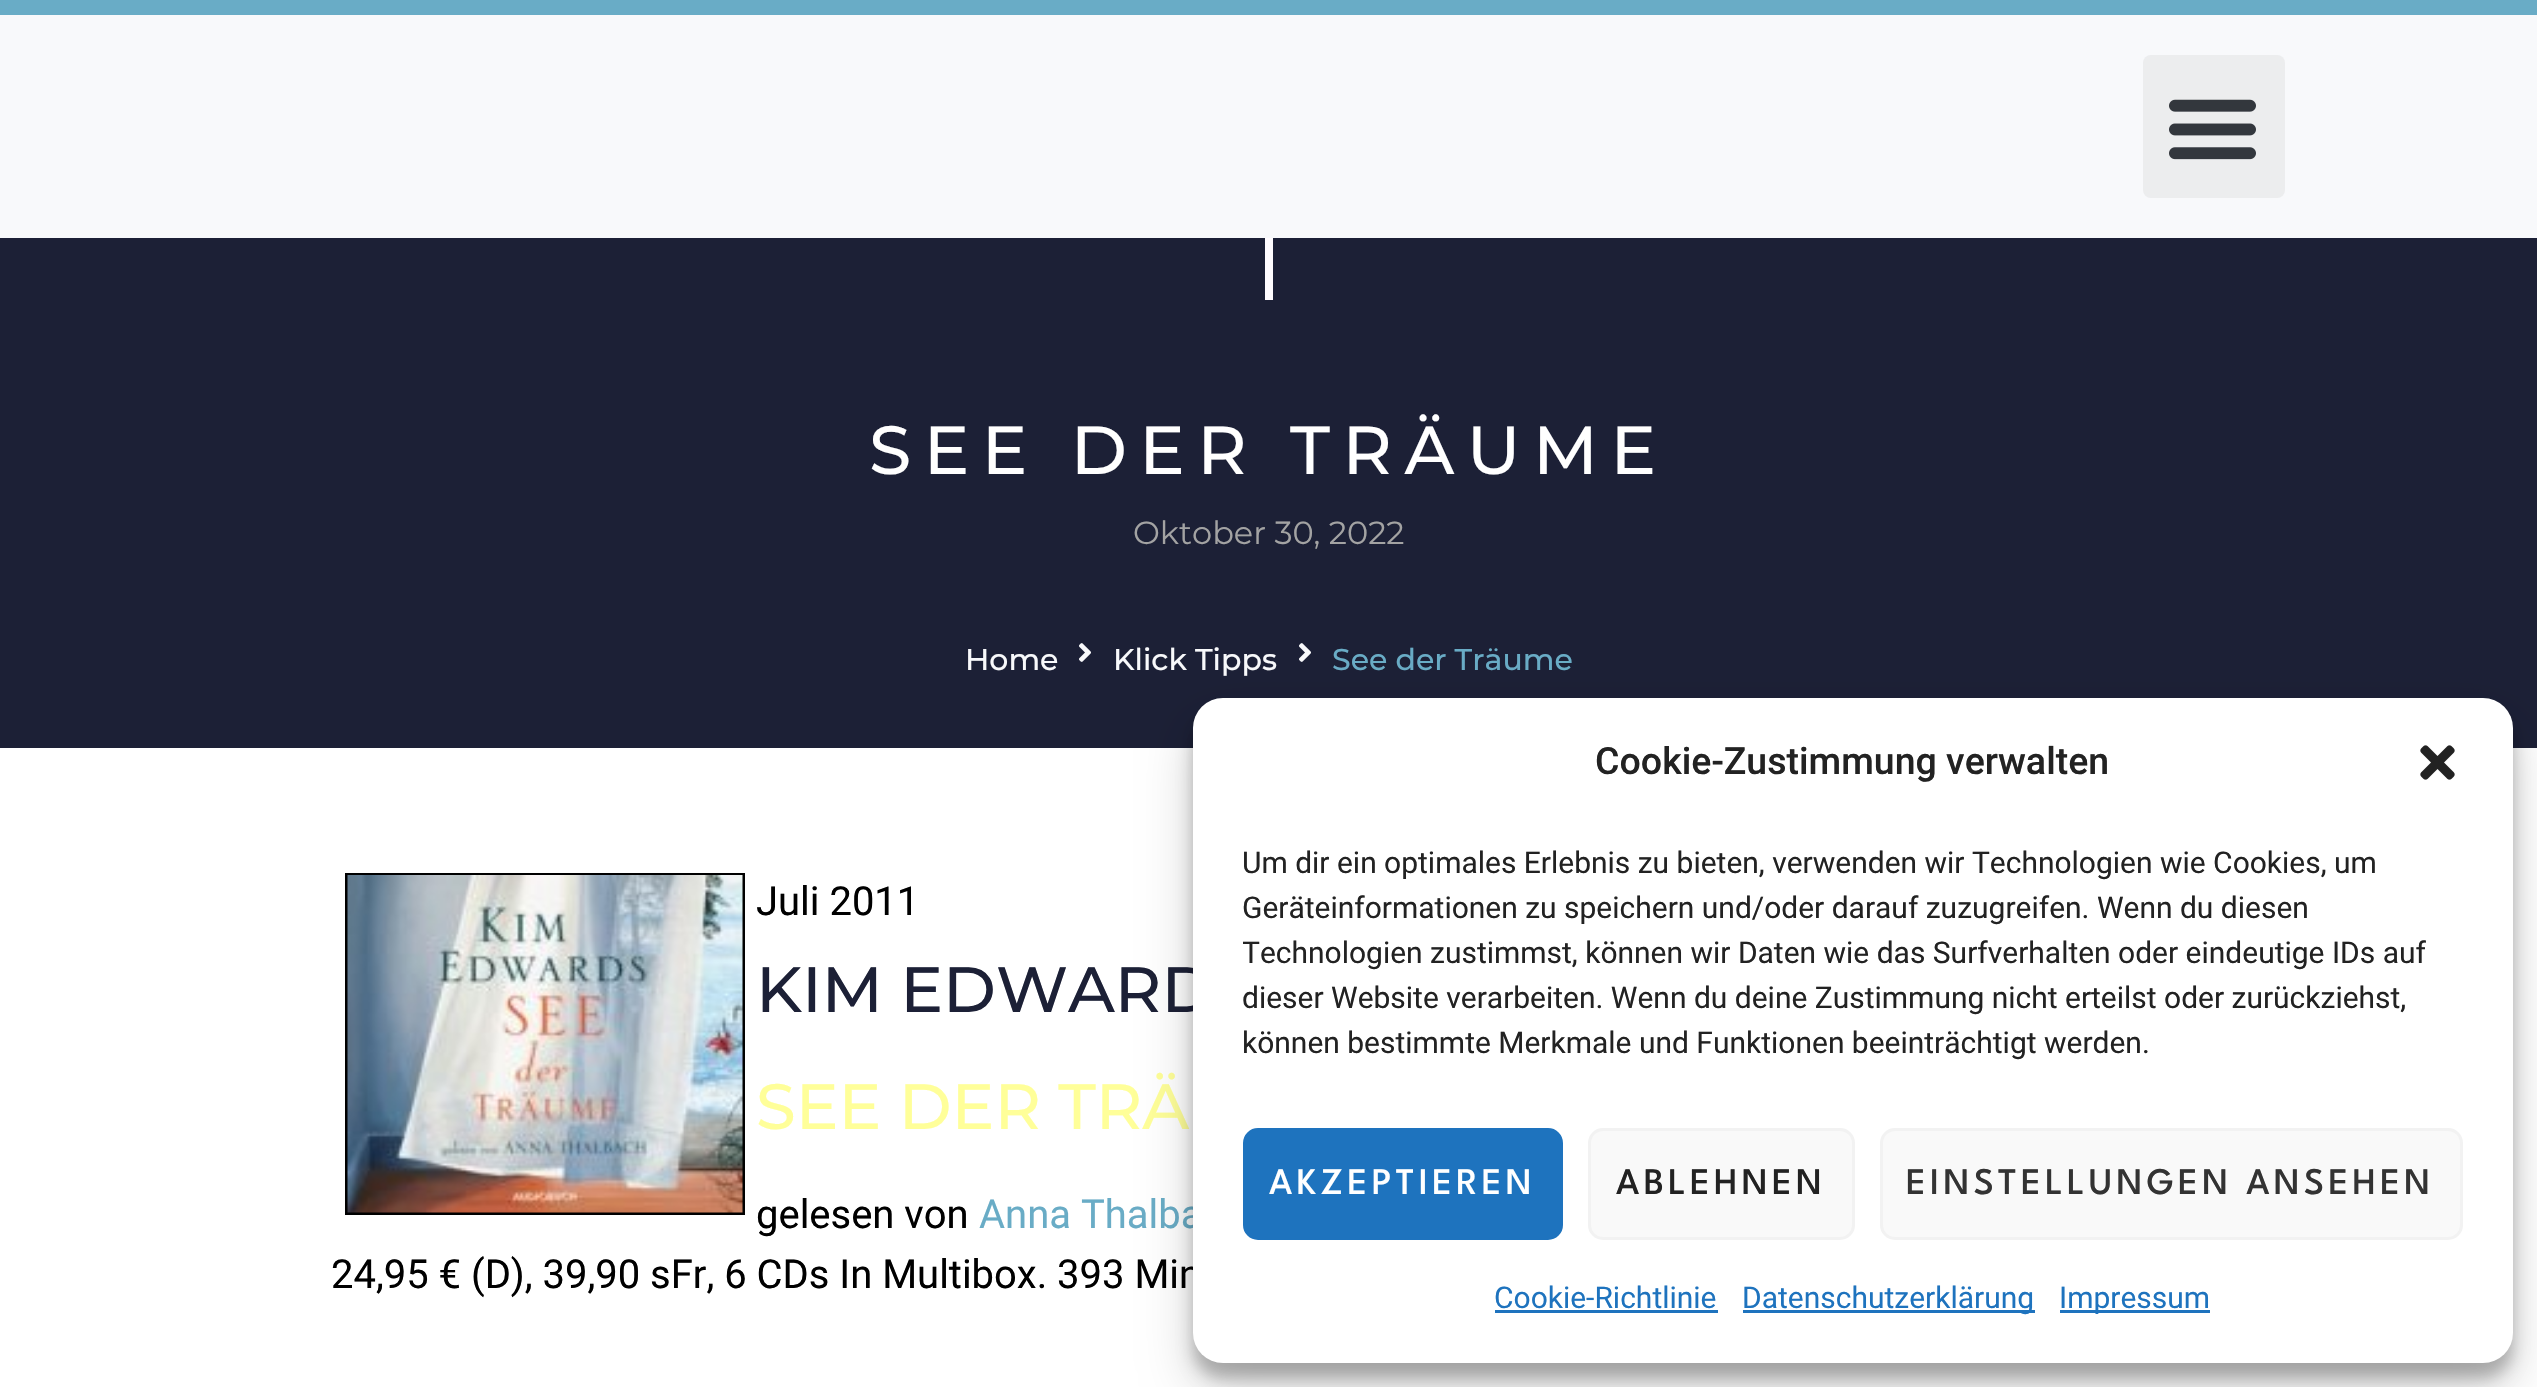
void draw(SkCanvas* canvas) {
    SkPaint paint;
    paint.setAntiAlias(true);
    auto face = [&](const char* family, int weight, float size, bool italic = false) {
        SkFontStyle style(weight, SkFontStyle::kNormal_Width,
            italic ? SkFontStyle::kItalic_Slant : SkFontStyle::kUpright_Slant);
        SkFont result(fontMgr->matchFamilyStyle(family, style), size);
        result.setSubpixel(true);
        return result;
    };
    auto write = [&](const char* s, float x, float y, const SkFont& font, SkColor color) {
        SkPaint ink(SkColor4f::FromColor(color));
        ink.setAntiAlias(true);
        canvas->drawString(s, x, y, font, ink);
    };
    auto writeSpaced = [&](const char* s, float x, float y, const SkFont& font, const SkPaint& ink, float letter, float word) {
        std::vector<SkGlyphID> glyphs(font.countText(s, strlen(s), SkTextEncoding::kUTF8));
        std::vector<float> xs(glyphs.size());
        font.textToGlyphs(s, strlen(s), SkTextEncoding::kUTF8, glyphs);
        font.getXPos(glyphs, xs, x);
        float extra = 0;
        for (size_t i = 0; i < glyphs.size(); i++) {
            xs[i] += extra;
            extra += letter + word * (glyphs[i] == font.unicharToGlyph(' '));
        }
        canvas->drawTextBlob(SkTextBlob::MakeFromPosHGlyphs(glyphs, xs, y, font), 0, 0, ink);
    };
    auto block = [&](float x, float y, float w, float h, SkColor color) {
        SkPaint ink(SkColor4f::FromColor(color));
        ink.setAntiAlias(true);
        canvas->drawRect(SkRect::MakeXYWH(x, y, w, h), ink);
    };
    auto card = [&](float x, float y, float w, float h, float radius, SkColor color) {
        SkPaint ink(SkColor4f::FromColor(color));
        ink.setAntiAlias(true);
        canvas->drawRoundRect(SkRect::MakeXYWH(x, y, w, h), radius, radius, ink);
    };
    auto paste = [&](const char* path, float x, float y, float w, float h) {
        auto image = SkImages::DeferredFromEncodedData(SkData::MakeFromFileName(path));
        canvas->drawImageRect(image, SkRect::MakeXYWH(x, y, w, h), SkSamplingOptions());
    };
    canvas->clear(SK_ColorWHITE);
    block(0, 15, 2537, 223, SkColorSetRGB(248, 249, 251));
    block(0, 0, 2537, 15, SkColorSetRGB(105, 172, 198));
    card(2143, 55, 142, 143, 8, SkColorSetRGB(236, 237, 238));
    paste("pic1.png", 2169, 99, 87, 61);
    block(0, 238, 2537, 510, SkColorSetRGB(28, 32, 54));
    block(1265, 238, 8, 62, SkColorSetRGB(255, 252, 255));
    auto kFont1 = face("Montserrat", 100, 68);
    paint.setColor(SK_ColorWHITE);
    writeSpaced("SEE DER TRÄUME", 869, 474, kFont1, paint, 12.5f, 0);
    auto kFont2 = face("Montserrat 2", 100, 32);
    write("Oktober 30, 2022", 1133, 544, kFont2, SkColorSetRGB(163, 163, 163));
    auto kFont3 = face("Montserrat", 100, 30);
    write("Home", 965, 670, kFont3, SkColorSetRGB(248, 249, 251));
    paste("pic2.png", 1079, 643, 12, 19);
    write("Klick Tipps", 1113, 670, kFont3, SkColorSetRGB(248, 249, 251));
    paste("pic2.png", 1299, 643, 12, 19);
    write("See der Träume", 1332, 670, kFont3, SkColorSetRGB(105, 172, 198));
    paint.setStyle(SkPaint::kStroke_Style);
    paint.setStrokeWidth(3);
    paint.setColor(SK_ColorBLACK);
    canvas->drawRect(SkRect::MakeXYWH(346.5f, 874.5f, 397, 339), paint);
    paste("pic3.png", 347, 875, 396, 338);
    auto kFont4 = face("Roboto", 400, 40);
    write("Juli 2011", 756, 915, kFont4, SK_ColorBLACK);
    auto kFont5 = face("Montserrat", 100, 64);
    write("KIM EDWARD", 756, 1012, kFont5, SkColorSetRGB(28, 32, 54));
    write("SEE DER TRÄ", 756, 1129, kFont5, SkColorSetRGB(255, 255, 153));
    write("gelesen von", 756, 1228, kFont4, SK_ColorBLACK);
    write("Anna Thalba", 979, 1228, kFont4, SkColorSetRGB(105, 172, 198));
    write("24,95 € (D), 39,90 sFr, 6 CDs In Multibox. 393 Min", 331, 1288, kFont4, SK_ColorBLACK);
    paint.setStyle(SkPaint::kFill_Style);
    paint.setColor(SkColorSetARGB(59, 0, 0, 0));
    paint.setMaskFilter(SkMaskFilter::MakeBlur(kNormal_SkBlurStyle, 7.5f));
    canvas->drawRoundRect(SkRect::MakeXYWH(1193, 713, 1320, 665), 30, 30, paint);
    paint.setMaskFilter(nullptr);
    paint.setColor(SkColorSetARGB(48, 0, 0, 0));
    paint.setMaskFilter(SkMaskFilter::MakeBlur(kNormal_SkBlurStyle, 25));
    canvas->drawRoundRect(SkRect::MakeXYWH(1193, 723, 1320, 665), 30, 30, paint);
    paint.setMaskFilter(nullptr);
    card(1193, 698, 1320, 665, 30, SK_ColorWHITE);
    auto kFont6 = face("Roboto", 500, 37.5f);
    write("Cookie-Zustimmung verwalten", 1595, 774, kFont6, SkColorSetRGB(34, 34, 34));
    paste("pic4.png", 2420, 745, 35, 35);
    auto kFont7 = face("Roboto", 400, 30);
    write("Um dir ein optimales Erlebnis zu bieten, verwenden wir Technologien wie Cookies, um", 1242, 873, kFont7, SkColorSetRGB(34, 34, 34));
    write("Geräteinformationen zu speichern und/oder darauf zuzugreifen. Wenn du diesen", 1242, 918, kFont7, SkColorSetRGB(34, 34, 34));
    canvas->save();
    canvas->clipRect(SkRect::MakeXYWH(1243, 840, 1220, 238));
    write("Technologien zustimmst, können wir Daten wie das Surfverhalten oder eindeutige IDs auf", 1242, 963, kFont7, SkColorSetRGB(34, 34, 34));
    canvas->restore();
    write("dieser Website verarbeiten. Wenn du deine Zustimmung nicht erteilst oder zurückziehst,", 1242, 1008, kFont7, SkColorSetRGB(34, 34, 34));
    write("können bestimmte Merkmale und Funktionen beeinträchtigt werden.", 1242, 1053, kFont7, SkColorSetRGB(34, 34, 34));
    paint.setColor(SkColorSetRGB(30, 115, 190));
    canvas->drawRoundRect(SkRect::MakeXYWH(1244.5f, 1129.5f, 317, 109), 13.5f, 13.5f, paint);
    paint.setStyle(SkPaint::kStroke_Style);
    canvas->drawRoundRect(SkRect::MakeXYWH(1244.5f, 1129.5f, 317, 109), 13.5f, 13.5f, paint);
    auto kFont8 = face("League Spartan", 100, 37.5f);
    paint.setStyle(SkPaint::kFill_Style);
    paint.setColor(SK_ColorWHITE);
    writeSpaced("AKZEPTIEREN", 1269, 1194, kFont8, paint, 4.25f, 0);
    paint.setColor(SkColorSetRGB(249, 249, 249));
    canvas->drawRoundRect(SkRect::MakeXYWH(1589.5f, 1129.5f, 264, 109), 13.5f, 13.5f, paint);
    paint.setStyle(SkPaint::kStroke_Style);
    paint.setColor(SkColorSetRGB(242, 242, 242));
    canvas->drawRoundRect(SkRect::MakeXYWH(1589.5f, 1129.5f, 264, 109), 13.5f, 13.5f, paint);
    paint.setStyle(SkPaint::kFill_Style);
    paint.setColor(SkColorSetRGB(34, 34, 34));
    writeSpaced("ABLEHNEN", 1616, 1194, kFont8, paint, 4.25f, 0);
    paint.setColor(SkColorSetRGB(249, 249, 249));
    canvas->drawRoundRect(SkRect::MakeXYWH(1881.5f, 1129.5f, 580, 109), 13.5f, 13.5f, paint);
    paint.setStyle(SkPaint::kStroke_Style);
    paint.setColor(SkColorSetRGB(242, 242, 242));
    canvas->drawRoundRect(SkRect::MakeXYWH(1881.5f, 1129.5f, 580, 109), 13.5f, 13.5f, paint);
    paint.setStyle(SkPaint::kFill_Style);
    paint.setColor(SkColorSetRGB(51, 51, 51));
    writeSpaced("EINSTELLUNGEN ANSEHEN", 1906, 1194, kFont8, paint, 4.25f, 0);
    write("Cookie-Richtlinie", 1494, 1308, kFont7, SkColorSetRGB(30, 115, 190));
    block(1495, 1310, 223, 3, SkColorSetRGB(30, 115, 190));
    block(1743, 1310, 292, 3, SkColorSetRGB(30, 115, 190));
    write("Datenschutzerklärung", 1742, 1308, kFont7, SkColorSetRGB(30, 115, 190));
    block(2060, 1310, 150, 3, SkColorSetRGB(30, 115, 190));
    write("Impressum", 2059, 1308, kFont7, SkColorSetRGB(30, 115, 190));
}
